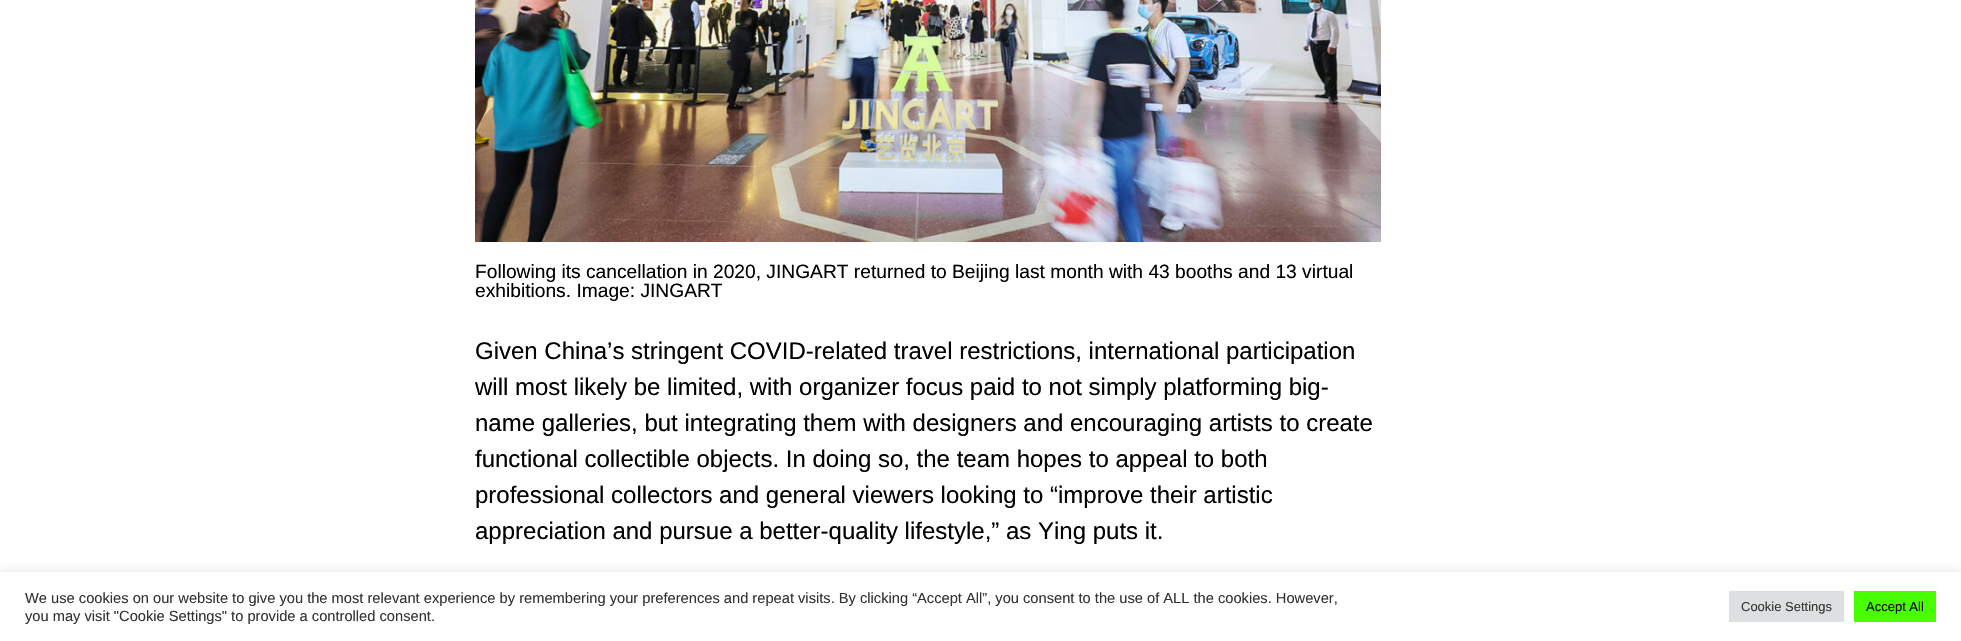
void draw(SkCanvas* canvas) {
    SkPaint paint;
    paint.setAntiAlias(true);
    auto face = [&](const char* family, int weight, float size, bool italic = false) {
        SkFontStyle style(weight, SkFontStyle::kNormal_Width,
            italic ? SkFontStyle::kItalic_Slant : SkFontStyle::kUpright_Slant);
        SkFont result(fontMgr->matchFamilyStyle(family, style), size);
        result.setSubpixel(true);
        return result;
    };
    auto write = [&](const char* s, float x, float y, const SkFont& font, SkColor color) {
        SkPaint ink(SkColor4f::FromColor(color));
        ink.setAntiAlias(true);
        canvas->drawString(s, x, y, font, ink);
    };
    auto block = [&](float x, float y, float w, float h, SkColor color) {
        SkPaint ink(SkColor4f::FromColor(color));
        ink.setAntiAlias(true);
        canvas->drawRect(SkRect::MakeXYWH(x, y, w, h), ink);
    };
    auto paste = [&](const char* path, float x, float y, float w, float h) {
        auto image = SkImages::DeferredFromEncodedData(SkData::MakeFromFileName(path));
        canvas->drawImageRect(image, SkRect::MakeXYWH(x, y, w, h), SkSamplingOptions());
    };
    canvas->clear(SK_ColorWHITE);
    paste("pic1.png", 475, 0, 906, 242);
    auto kFont1 = face("Liberation Sans", 400, 19.2f);
    write("Following its cancellation in 2020, JINGART returned to Beijing last month with 43 booths and 13 virtual", 475, 278, kFont1, SK_ColorBLACK);
    write("exhibitions. Image: JINGART", 475, 297, kFont1, SK_ColorBLACK);
    auto kFont2 = face("Liberation Sans", 400, 24);
    write("Given China’s stringent COVID-related travel restrictions, international participation", 475, 359, kFont2, SK_ColorBLACK);
    write("will most likely be limited, with organizer focus paid to not simply platforming big-", 475, 395, kFont2, SK_ColorBLACK);
    write("name galleries, but integrating them with designers and encouraging artists to create", 475, 431, kFont2, SK_ColorBLACK);
    write("functional collectible objects. In doing so, the team hopes to appeal to both", 475, 467, kFont2, SK_ColorBLACK);
    write("professional collectors and general viewers looking to “improve their artistic", 475, 503, kFont2, SK_ColorBLACK);
    write("appreciation and pursue a better-quality lifestyle,” as Ying puts it.", 475, 539, kFont2, SK_ColorBLACK);
    paint.setColor(SkColorSetARGB(77, 172, 171, 171));
    paint.setMaskFilter(SkMaskFilter::MakeBlur(kNormal_SkBlurStyle, 5));
    canvas->drawRect(SkRect::MakeXYWH(0, 571, 1961, 69), paint);
    paint.setMaskFilter(nullptr);
    block(0, 572, 1961, 69, SK_ColorWHITE);
    auto kFont3 = face("Liberation Sans", 400, 14.67f);
    write("We use cookies on our website to give you the most relevant experience by remembering your preferences and repeat visits. By clicking “Accept All”, you consent to the use of ALL the cookies. However,", 25, 603, kFont3, SkColorSetRGB(51, 51, 51));
    write("you may visit \"Cookie Settings\" to provide a controlled consent.", 25, 621, kFont3, SkColorSetRGB(51, 51, 51));
    block(1729, 591, 115, 31, SkColorSetRGB(222, 223, 224));
    auto kFont4 = face("Liberation Sans", 400, 13);
    write("Cookie Settings", 1741, 611, kFont4, SkColorSetRGB(51, 51, 51));
    block(1854, 591, 82, 31, SkColorSetRGB(72, 255, 0));
    write("Accept All", 1866, 611, kFont4, SK_ColorBLACK);
}
